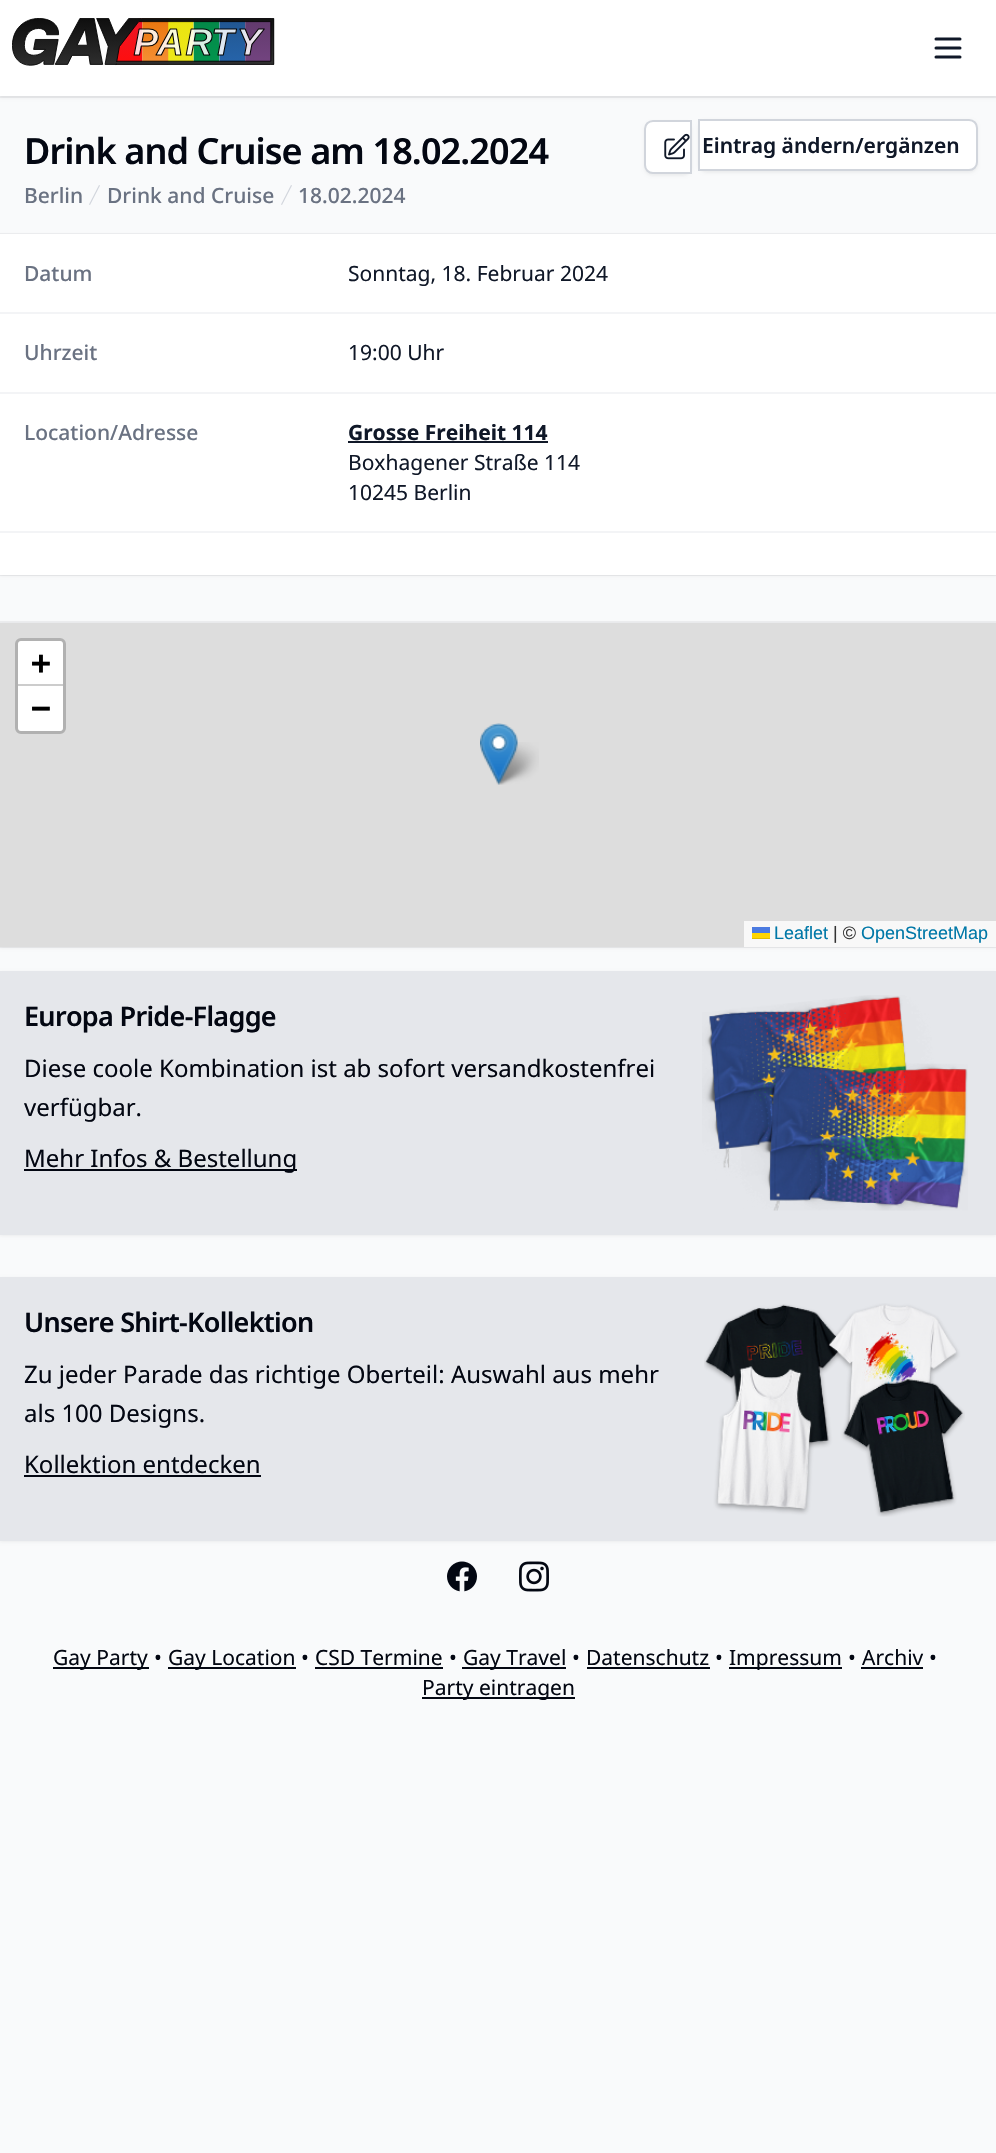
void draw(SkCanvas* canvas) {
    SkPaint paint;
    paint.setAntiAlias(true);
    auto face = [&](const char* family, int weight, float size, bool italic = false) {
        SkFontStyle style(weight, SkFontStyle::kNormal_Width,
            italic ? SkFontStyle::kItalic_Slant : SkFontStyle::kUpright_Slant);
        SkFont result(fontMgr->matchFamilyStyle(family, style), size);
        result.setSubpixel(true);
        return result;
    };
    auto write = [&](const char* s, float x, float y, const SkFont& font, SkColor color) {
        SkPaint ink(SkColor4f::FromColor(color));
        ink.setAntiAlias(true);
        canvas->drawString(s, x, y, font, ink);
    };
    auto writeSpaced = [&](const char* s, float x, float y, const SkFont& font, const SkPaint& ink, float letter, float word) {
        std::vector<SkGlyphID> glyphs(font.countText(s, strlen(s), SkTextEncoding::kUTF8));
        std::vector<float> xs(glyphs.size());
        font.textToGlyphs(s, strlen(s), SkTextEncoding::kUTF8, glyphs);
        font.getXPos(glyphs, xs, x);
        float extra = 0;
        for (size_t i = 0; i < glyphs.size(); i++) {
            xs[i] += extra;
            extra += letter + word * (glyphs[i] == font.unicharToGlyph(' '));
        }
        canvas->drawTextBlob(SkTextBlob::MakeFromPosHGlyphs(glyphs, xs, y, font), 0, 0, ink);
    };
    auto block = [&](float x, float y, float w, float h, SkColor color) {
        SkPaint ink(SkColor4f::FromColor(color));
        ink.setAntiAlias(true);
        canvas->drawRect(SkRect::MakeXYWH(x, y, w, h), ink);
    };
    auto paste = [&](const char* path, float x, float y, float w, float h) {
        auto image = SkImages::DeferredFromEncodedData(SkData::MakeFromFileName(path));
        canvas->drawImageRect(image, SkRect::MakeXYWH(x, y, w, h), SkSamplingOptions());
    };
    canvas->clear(SkColorSetRGB(249, 250, 251));
    paint.setColor(SkColorSetARGB(13, 0, 0, 0));
    paint.setMaskFilter(SkMaskFilter::MakeBlur(kNormal_SkBlurStyle, 1.5f));
    canvas->drawRect(SkRect::MakeXYWH(0, 2, 996, 96), paint);
    paint.setMaskFilter(nullptr);
    paint.setStyle(SkPaint::kStroke_Style);
    paint.setStrokeWidth(2);
    paint.setColor(SkColorSetARGB(13, 3, 7, 18));
    canvas->drawRect(SkRect::MakeXYWH(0, 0, 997, 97), paint);
    block(0, 0, 996, 96, SK_ColorWHITE);
    paste("pic1.png", 12, 18, 263, 48);
    paint.setStrokeWidth(3);
    paint.setStrokeCap(SkPaint::kRound_Cap);
    paint.setStrokeJoin(SkPaint::kRound_Join);
    paint.setColor(SkColorSetRGB(16, 24, 40));
    canvas->drawPath(SkPathBuilder().moveTo(936, 39).lineTo(960, 39).moveTo(936, 48).lineTo(960, 48).moveTo(936, 57).lineTo(960, 57).detach(), paint);
    auto kFont1 = face("Noto Sans", 600, 36);
    paint.setStyle(SkPaint::kFill_Style);
    paint.setColor(SkColorSetRGB(3, 7, 18));
    writeSpaced("Drink and Cruise am 18.02.2024", 24, 164, kFont1, paint, -0.9f, 0);
    paint.setColor(SkColorSetARGB(13, 0, 0, 0));
    paint.setMaskFilter(SkMaskFilter::MakeBlur(kNormal_SkBlurStyle, 1.5f));
    canvas->drawRoundRect(SkRect::MakeXYWH(644, 122, 48, 54), 9, 9, paint);
    paint.setMaskFilter(nullptr);
    paint.setColor(SK_ColorWHITE);
    canvas->drawPath(SkPathBuilder().moveTo(653, 121).lineTo(691, 121).lineTo(691, 173).lineTo(653, 173).cubicTo(648.5f, 173, 645, 169.5f, 645, 165).lineTo(645, 129).cubicTo(645, 124.5f, 648.5f, 121, 653, 121).close().detach(), paint);
    paint.setStyle(SkPaint::kStroke_Style);
    paint.setStrokeWidth(2);
    paint.setStrokeCap(SkPaint::kButt_Cap);
    paint.setStrokeJoin(SkPaint::kMiter_Join);
    paint.setColor(SkColorSetRGB(209, 213, 220));
    canvas->drawPath(SkPathBuilder().moveTo(653, 121).lineTo(691, 121).lineTo(691, 173).lineTo(653, 173).cubicTo(648.5f, 173, 645, 169.5f, 645, 165).lineTo(645, 129).cubicTo(645, 124.5f, 648.5f, 121, 653, 121).close().detach(), paint);
    paste("pic2.png", 664, 133, 26, 27);
    paint.setStyle(SkPaint::kFill_Style);
    paint.setColor(SkColorSetARGB(13, 0, 0, 0));
    paint.setMaskFilter(SkMaskFilter::MakeBlur(kNormal_SkBlurStyle, 1.5f));
    canvas->drawRoundRect(SkRect::MakeXYWH(698, 120, 280, 53), 9, 9, paint);
    paint.setMaskFilter(nullptr);
    paint.setColor(SK_ColorWHITE);
    canvas->drawPath(SkPathBuilder().moveTo(699, 120).lineTo(969, 120).cubicTo(973.5f, 120, 977, 123.5f, 977, 128).lineTo(977, 162).cubicTo(977, 166.5f, 973.5f, 170, 969, 170).lineTo(699, 170).close().detach(), paint);
    paint.setStyle(SkPaint::kStroke_Style);
    paint.setColor(SkColorSetRGB(209, 213, 220));
    canvas->drawPath(SkPathBuilder().moveTo(699, 120).lineTo(969, 120).cubicTo(973.5f, 120, 977, 123.5f, 977, 128).lineTo(977, 162).cubicTo(977, 166.5f, 973.5f, 170, 969, 170).lineTo(699, 170).close().detach(), paint);
    auto kFont2 = face("Noto Sans", 600, 21);
    write("Eintrag ändern/ergänzen", 702, 153, kFont2, SkColorSetRGB(16, 24, 40));
    auto kFont3 = face("Noto Sans", 500, 21);
    write("Berlin", 24, 203, kFont3, SkColorSetRGB(106, 114, 130));
    paint.setStyle(SkPaint::kFill_Style);
    canvas->drawPath(SkPathBuilder().moveTo(89, 204.5f).lineTo(99, 185).lineTo(100, 185.5f).lineTo(90, 205).close().detach(), paint);
    write("Drink and Cruise", 107, 203, kFont3, SkColorSetRGB(106, 114, 130));
    canvas->drawPath(SkPathBuilder().moveTo(281, 204.5f).lineTo(291, 185).lineTo(292, 185.5f).lineTo(282, 205).close().detach(), paint);
    write("18.02.2024", 298, 203, kFont3, SkColorSetRGB(106, 114, 130));
    paint.setColor(SkColorSetARGB(13, 0, 0, 0));
    paint.setMaskFilter(SkMaskFilter::MakeBlur(kNormal_SkBlurStyle, 1.5f));
    canvas->drawRect(SkRect::MakeXYWH(0, 236, 996, 340), paint);
    paint.setMaskFilter(nullptr);
    paint.setStyle(SkPaint::kStroke_Style);
    paint.setColor(SkColorSetARGB(13, 3, 7, 18));
    canvas->drawRect(SkRect::MakeXYWH(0, 234, 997, 341), paint);
    block(0, 234, 996, 341, SK_ColorWHITE);
    block(0, 312, 996, 2, SkColorSetRGB(243, 244, 246));
    write("Datum", 24, 281, kFont3, SkColorSetRGB(106, 114, 130));
    auto kFont4 = face("Noto Sans", 400, 21);
    write("Sonntag, 18. Februar 2024", 348, 281, kFont4, SkColorSetRGB(16, 24, 40));
    block(0, 392, 996, 2, SkColorSetRGB(243, 244, 246));
    write("Uhrzeit", 24, 360, kFont3, SkColorSetRGB(106, 114, 130));
    write("19:00 Uhr", 348, 360, kFont4, SkColorSetRGB(16, 24, 40));
    block(0, 531, 996, 2, SkColorSetRGB(243, 244, 246));
    write("Location/Adresse", 24, 440, kFont3, SkColorSetRGB(106, 114, 130));
    auto kFont5 = face("Noto Sans", 700, 21);
    write("Grosse Freiheit 114", 348, 440, kFont5, SkColorSetRGB(16, 24, 40));
    block(348, 441, 200, 2, SkColorSetRGB(16, 24, 40));
    write("Boxhagener Straße 114", 348, 470, kFont4, SkColorSetRGB(16, 24, 40));
    write("10245 Berlin", 348, 500, kFont4, SkColorSetRGB(16, 24, 40));
    paint.setStyle(SkPaint::kFill_Style);
    paint.setColor(SkColorSetARGB(13, 0, 0, 0));
    paint.setMaskFilter(SkMaskFilter::MakeBlur(kNormal_SkBlurStyle, 1.5f));
    canvas->drawRect(SkRect::MakeXYWH(0, 624, 996, 324), paint);
    paint.setMaskFilter(nullptr);
    paint.setStyle(SkPaint::kStroke_Style);
    paint.setColor(SkColorSetARGB(13, 3, 7, 18));
    canvas->drawRect(SkRect::MakeXYWH(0, 622, 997, 325), paint);
    block(0, 623, 996, 324, SkColorSetRGB(221, 221, 221));
    paint.setStrokeWidth(3);
    paint.setColor(SkColorSetRGB(177, 177, 177));
    canvas->drawRoundRect(SkRect::MakeXYWH(16.5f, 639.5f, 48, 93), 4.5f, 4.5f, paint);
    paint.setStyle(SkPaint::kFill_Style);
    paint.setColor(SK_ColorWHITE);
    canvas->drawPath(SkPathBuilder().moveTo(21, 641).lineTo(60, 641).cubicTo(61.5f, 641, 63, 642.5f, 63, 644).lineTo(63, 684).lineTo(18, 684).lineTo(18, 644).cubicTo(18, 642.5f, 19.5f, 641, 21, 641).close().detach(), paint);
    block(18, 684, 45, 2, SkColorSetRGB(204, 204, 204));
    auto kFont6 = face("DejaVu Sans Mono", 700, 33);
    write("+", 31, 674, kFont6, SK_ColorBLACK);
    canvas->drawPath(SkPathBuilder().moveTo(18, 686).lineTo(63, 686).lineTo(63, 728).cubicTo(63, 729.5f, 61.5f, 731, 60, 731).lineTo(21, 731).cubicTo(19.5f, 731, 18, 729.5f, 18, 728).close().detach(), paint);
    write("−", 31, 719, kFont6, SK_ColorBLACK);
    block(744, 921, 252, 26, SkColorSetRGB(248, 248, 248));
    auto kFont7 = face("Liberation Sans", 400, 18);
    write("Leaflet", 774, 939, kFont7, SkColorSetRGB(0, 120, 168));
    block(752, 927, 18, 6, SkColorSetRGB(76, 123, 225));
    block(752, 933, 18, 5, SkColorSetRGB(255, 213, 0));
    block(752, 938, 18, 1, SkColorSetRGB(224, 188, 0));
    write("| ©", 833, 939, kFont7, SkColorSetRGB(51, 51, 51));
    write("OpenStreetMap", 861, 939, kFont7, SkColorSetRGB(0, 120, 168));
    paste("pic4.png", 493, 742, 46, 43);
    paste("pic3.png", 480, 723, 38, 62);
    paint.setColor(SkColorSetARGB(13, 0, 0, 0));
    paint.setMaskFilter(SkMaskFilter::MakeBlur(kNormal_SkBlurStyle, 1.5f));
    canvas->drawRect(SkRect::MakeXYWH(0, 972, 996, 264), paint);
    paint.setMaskFilter(nullptr);
    block(0, 971, 996, 264, SkColorSetRGB(229, 231, 235));
    auto kFont8 = face("Noto Sans", 600, 27);
    paint.setColor(SkColorSetRGB(3, 7, 18));
    writeSpaced("Europa Pride-Flagge", 24, 1026, kFont8, paint, -0.7f, 0);
    auto kFont9 = face("Noto Sans", 400, 24);
    write("Diese coole Kombination ist ab sofort versandkostenfrei", 24, 1077, kFont9, SkColorSetRGB(3, 7, 18));
    write("verfügbar.", 24, 1116, kFont9, SkColorSetRGB(3, 7, 18));
    block(24, 1169, 273, 2, SkColorSetRGB(3, 7, 18));
    write("Mehr Infos & Bestellung", 24, 1167, kFont9, SkColorSetRGB(3, 7, 18));
    paste("pic5.png", 702, 995, 266, 216);
    paint.setColor(SkColorSetARGB(13, 0, 0, 0));
    paint.setMaskFilter(SkMaskFilter::MakeBlur(kNormal_SkBlurStyle, 1.5f));
    canvas->drawRect(SkRect::MakeXYWH(0, 1278, 996, 264), paint);
    paint.setMaskFilter(nullptr);
    block(0, 1277, 996, 264, SkColorSetRGB(229, 231, 235));
    paint.setColor(SkColorSetRGB(3, 7, 18));
    writeSpaced("Unsere Shirt-Kollektion", 24, 1332, kFont8, paint, -0.7f, 0);
    write("Zu jeder Parade das richtige Oberteil: Auswahl aus mehr", 24, 1383, kFont9, SkColorSetRGB(3, 7, 18));
    write("als 100 Designs.", 24, 1422, kFont9, SkColorSetRGB(3, 7, 18));
    write("Kollektion entdecken", 24, 1473, kFont9, SkColorSetRGB(3, 7, 18));
    block(24, 1475, 237, 2, SkColorSetRGB(3, 7, 18));
    paste("pic6.png", 704, 1303, 261, 214);
    paste("pic7.png", 447, 1561, 30, 31);
    paste("pic8.png", 519, 1561, 30, 31);
    block(53, 1667, 96, 2, SkColorSetRGB(3, 7, 18));
    write("Gay Party", 53, 1665, kFont4, SkColorSetRGB(3, 7, 18));
    write("•", 154, 1665, kFont4, SkColorSetRGB(3, 7, 18));
    block(168, 1667, 128, 2, SkColorSetRGB(3, 7, 18));
    write("Gay Location", 168, 1665, kFont4, SkColorSetRGB(3, 7, 18));
    write("•", 301, 1665, kFont4, SkColorSetRGB(3, 7, 18));
    write("CSD Termine", 315, 1665, kFont4, SkColorSetRGB(3, 7, 18));
    block(315, 1667, 128, 2, SkColorSetRGB(3, 7, 18));
    write("•", 449, 1665, kFont4, SkColorSetRGB(3, 7, 18));
    block(462, 1667, 104, 2, SkColorSetRGB(3, 7, 18));
    write("Gay Travel", 463, 1665, kFont4, SkColorSetRGB(3, 7, 18));
    write("•", 572, 1665, kFont4, SkColorSetRGB(3, 7, 18));
    write("Datenschutz", 586, 1665, kFont4, SkColorSetRGB(3, 7, 18));
    block(587, 1667, 123, 2, SkColorSetRGB(3, 7, 18));
    write("•", 715, 1665, kFont4, SkColorSetRGB(3, 7, 18));
    block(729, 1667, 113, 2, SkColorSetRGB(3, 7, 18));
    write("Impressum", 729, 1665, kFont4, SkColorSetRGB(3, 7, 18));
    write("•", 848, 1665, kFont4, SkColorSetRGB(3, 7, 18));
    write("Archiv", 862, 1665, kFont4, SkColorSetRGB(3, 7, 18));
    block(861, 1667, 62, 2, SkColorSetRGB(3, 7, 18));
    write("•", 929, 1665, kFont4, SkColorSetRGB(3, 7, 18));
    block(422, 1697, 153, 2, SkColorSetRGB(3, 7, 18));
    write("Party eintragen", 422, 1695, kFont4, SkColorSetRGB(3, 7, 18));
}
